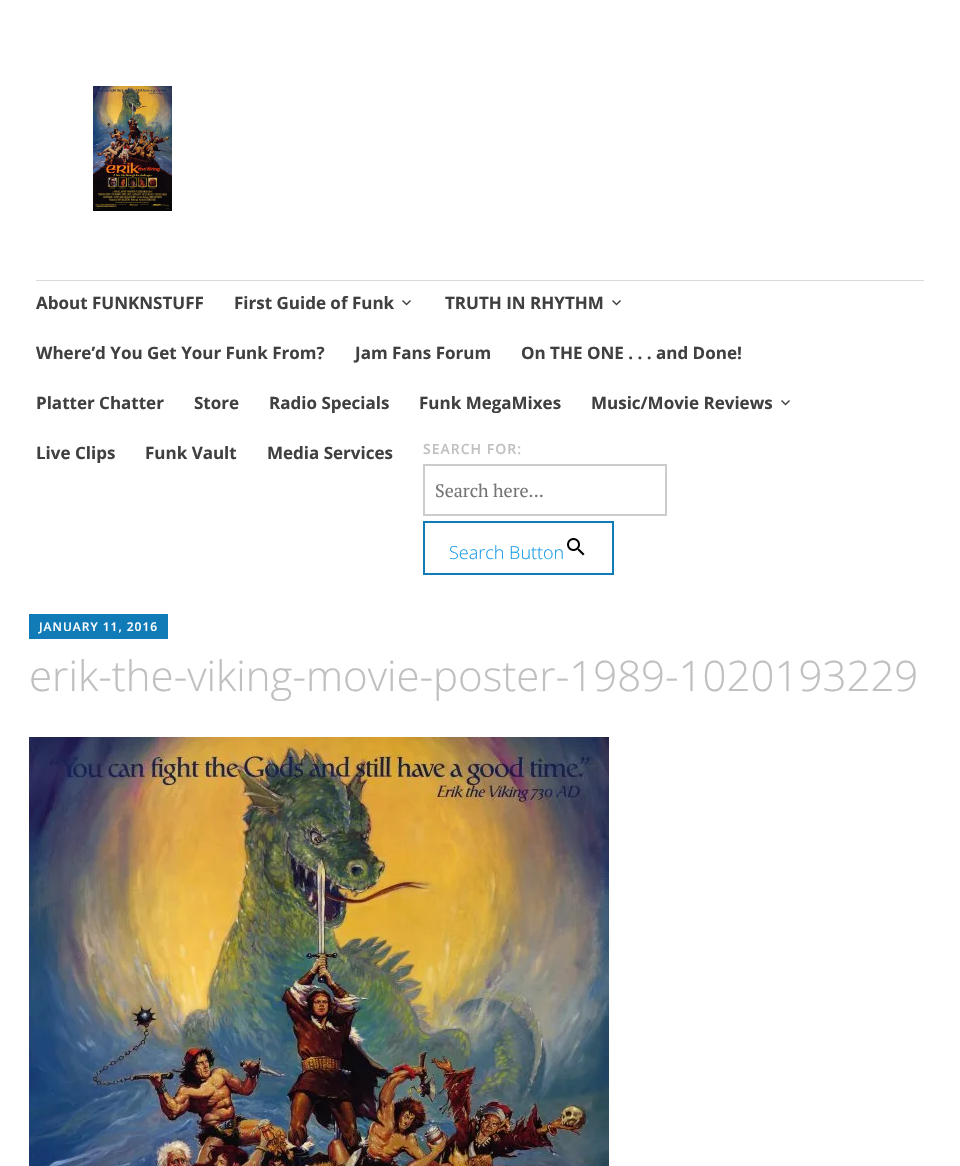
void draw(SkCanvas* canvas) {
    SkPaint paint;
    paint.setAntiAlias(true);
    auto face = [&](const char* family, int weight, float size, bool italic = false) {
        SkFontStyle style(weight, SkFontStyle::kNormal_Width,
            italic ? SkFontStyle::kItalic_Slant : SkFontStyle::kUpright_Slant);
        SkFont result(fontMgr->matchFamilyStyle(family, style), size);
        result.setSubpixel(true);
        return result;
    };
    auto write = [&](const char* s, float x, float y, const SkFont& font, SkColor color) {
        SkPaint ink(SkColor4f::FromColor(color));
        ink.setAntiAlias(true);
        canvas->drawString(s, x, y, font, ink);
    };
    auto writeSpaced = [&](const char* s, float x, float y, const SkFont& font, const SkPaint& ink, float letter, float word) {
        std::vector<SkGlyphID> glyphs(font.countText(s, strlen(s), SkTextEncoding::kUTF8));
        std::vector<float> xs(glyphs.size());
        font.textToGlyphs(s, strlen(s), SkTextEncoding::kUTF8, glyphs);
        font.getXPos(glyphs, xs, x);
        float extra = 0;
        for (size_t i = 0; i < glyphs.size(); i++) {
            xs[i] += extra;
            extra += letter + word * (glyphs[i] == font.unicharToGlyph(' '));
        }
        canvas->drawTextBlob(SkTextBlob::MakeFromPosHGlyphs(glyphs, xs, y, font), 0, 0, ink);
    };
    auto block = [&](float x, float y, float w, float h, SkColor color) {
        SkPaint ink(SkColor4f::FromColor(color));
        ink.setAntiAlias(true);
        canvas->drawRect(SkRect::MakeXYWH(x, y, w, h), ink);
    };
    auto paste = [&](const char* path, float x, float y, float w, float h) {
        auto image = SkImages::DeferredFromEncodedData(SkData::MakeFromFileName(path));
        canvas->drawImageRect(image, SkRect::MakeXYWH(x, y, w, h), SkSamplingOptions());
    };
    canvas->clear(SK_ColorWHITE);
    paste("pic1.png", 93, 86, 79, 125);
    block(36, 280, 888, 1, SkColorSetRGB(217, 217, 217));
    auto kFont1 = face("Open Sans", 700, 17);
    write("About FUNKNSTUFF", 36, 309, kFont1, SkColorSetRGB(64, 64, 64));
    write("First Guide of Funk", 234, 309, kFont1, SkColorSetRGB(64, 64, 64));
    paste("pic2.png", 402, 300, 9, 6);
    write("TRUTH IN RHYTHM", 445, 309, kFont1, SkColorSetRGB(64, 64, 64));
    paste("pic2.png", 612, 300, 9, 6);
    write("Where’d You Get Your Funk From?", 36, 359, kFont1, SkColorSetRGB(64, 64, 64));
    write("Jam Fans Forum", 355, 359, kFont1, SkColorSetRGB(64, 64, 64));
    write("On THE ONE . . . and Done!", 521, 359, kFont1, SkColorSetRGB(64, 64, 64));
    write("Platter Chatter", 36, 409, kFont1, SkColorSetRGB(64, 64, 64));
    write("Store", 194, 409, kFont1, SkColorSetRGB(64, 64, 64));
    write("Radio Specials", 269, 409, kFont1, SkColorSetRGB(64, 64, 64));
    write("Funk MegaMixes", 419, 409, kFont1, SkColorSetRGB(64, 64, 64));
    write("Music/Movie Reviews", 591, 409, kFont1, SkColorSetRGB(64, 64, 64));
    paste("pic2.png", 781, 400, 9, 6);
    write("Live Clips", 36, 459, kFont1, SkColorSetRGB(64, 64, 64));
    write("Funk Vault", 145, 459, kFont1, SkColorSetRGB(64, 64, 64));
    write("Media Services", 267, 459, kFont1, SkColorSetRGB(64, 64, 64));
    auto kFont2 = face("Open Sans", 600, 14);
    paint.setColor(SkColorSetRGB(192, 192, 192));
    writeSpaced("SEARCH FOR:", 423, 454, kFont2, paint, 1, 0);
    paint.setStyle(SkPaint::kStroke_Style);
    paint.setStrokeWidth(2);
    paint.setColor(SkColorSetRGB(204, 204, 204));
    canvas->drawRect(SkRect::MakeXYWH(424, 465, 242, 50), paint);
    auto kFont3 = face("PT Serif", 400, 18);
    write("Search here...", 435, 497, kFont3, SkColorSetRGB(117, 117, 117));
    paint.setColor(SkColorSetRGB(17, 123, 184));
    canvas->drawRect(SkRect::MakeXYWH(424, 522, 189, 52), paint);
    auto kFont4 = face("Open Sans", 300, 18);
    write("Search Button", 449, 559, kFont4, SkColorSetRGB(21, 154, 231));
    paste("pic3.png", 567, 538, 18, 18);
    block(29, 614, 139, 25, SkColorSetRGB(17, 123, 184));
    auto kFont5 = face("Open Sans", 600, 12);
    paint.setStyle(SkPaint::kFill_Style);
    paint.setColor(SK_ColorWHITE);
    writeSpaced("JANUARY 11, 2016", 39, 631, kFont5, paint, 1, 0);
    auto kFont6 = face("Open Sans", 300, 42);
    write("erik-the-viking-movie-poster-1989-1020193229", 29, 691, kFont6, SkColorSetRGB(192, 192, 192));
    paste("pic4.png", 29, 737, 580, 429);
}
